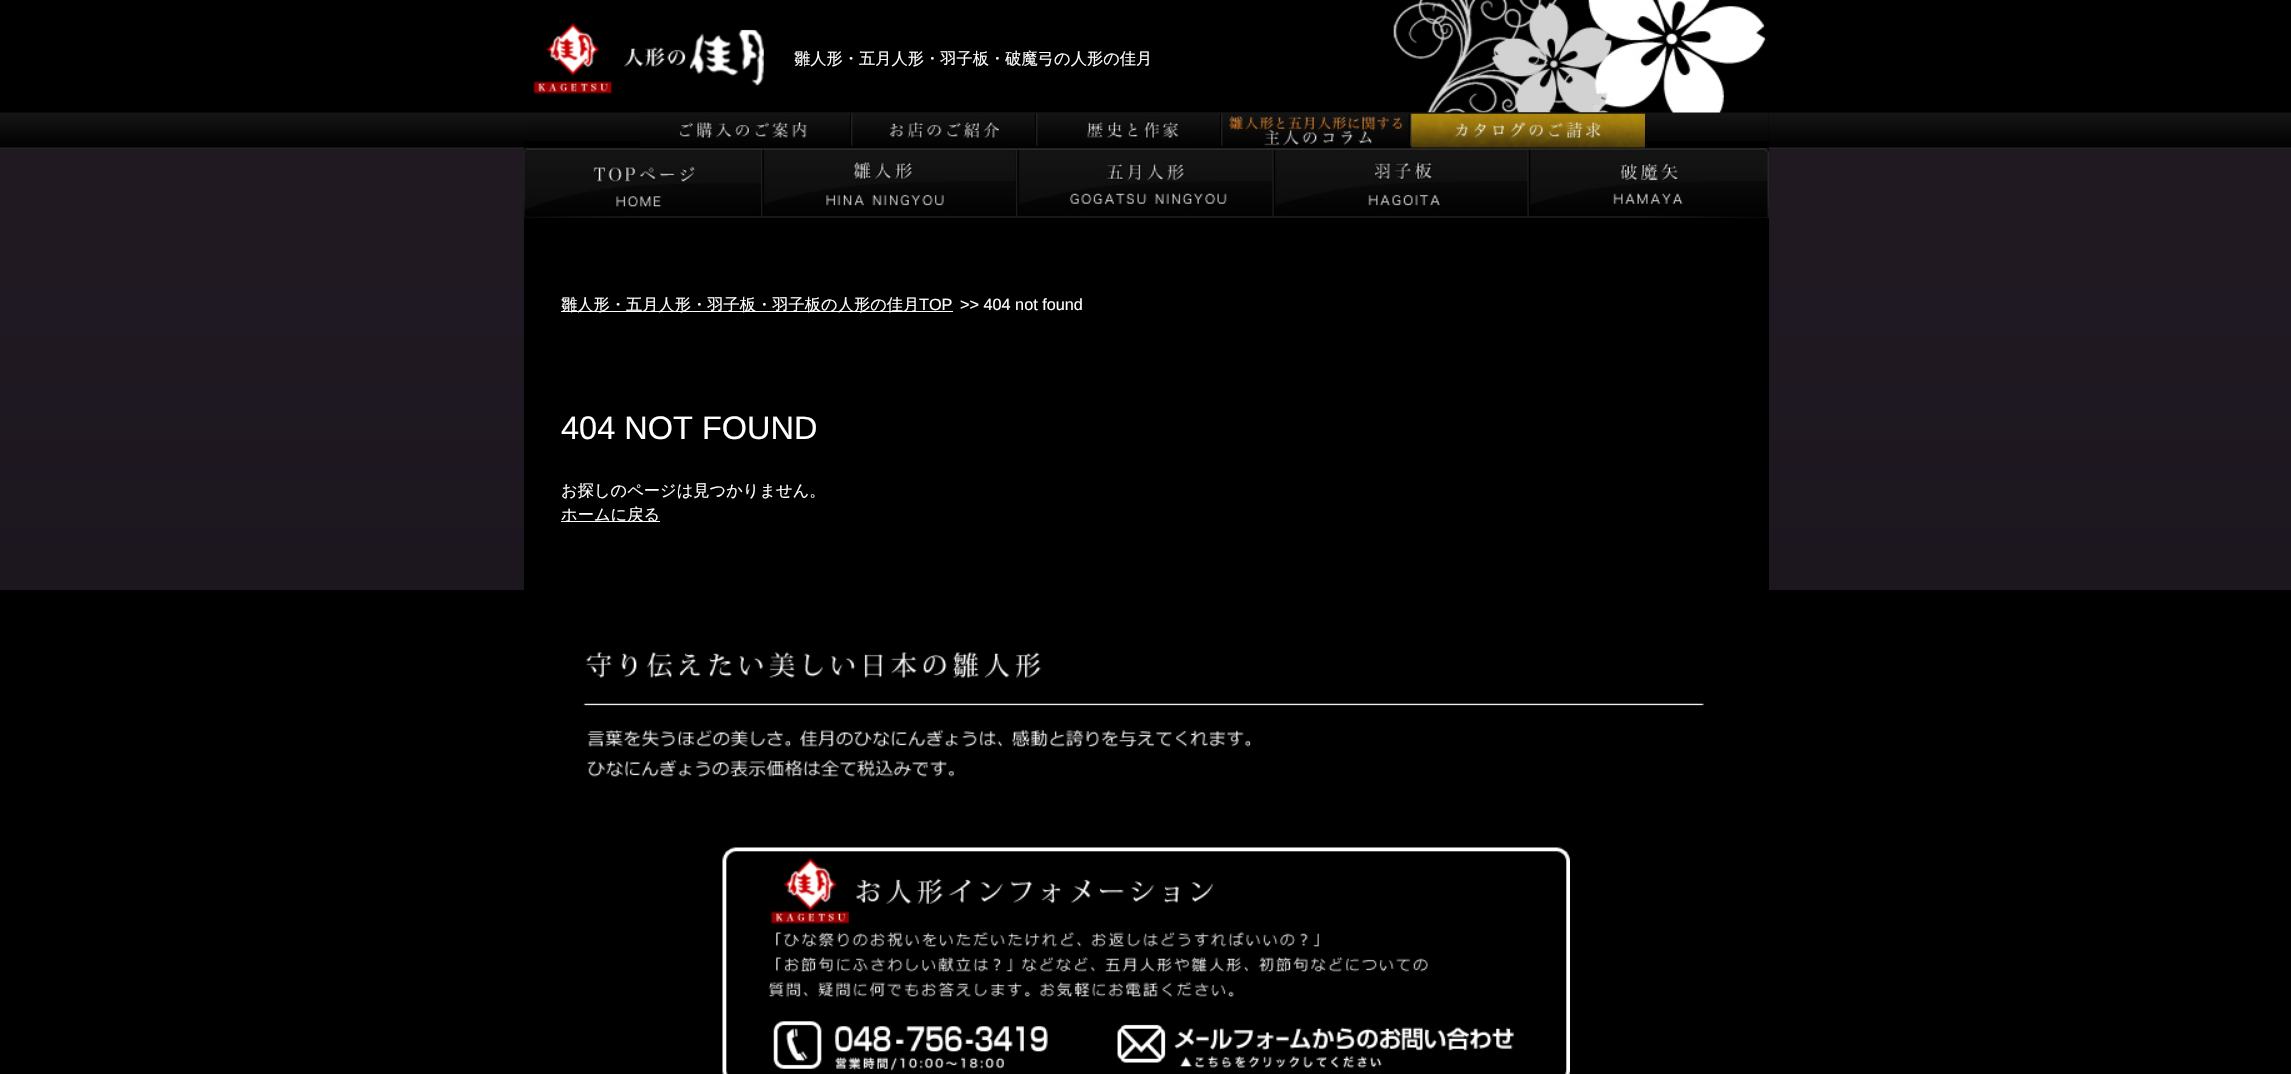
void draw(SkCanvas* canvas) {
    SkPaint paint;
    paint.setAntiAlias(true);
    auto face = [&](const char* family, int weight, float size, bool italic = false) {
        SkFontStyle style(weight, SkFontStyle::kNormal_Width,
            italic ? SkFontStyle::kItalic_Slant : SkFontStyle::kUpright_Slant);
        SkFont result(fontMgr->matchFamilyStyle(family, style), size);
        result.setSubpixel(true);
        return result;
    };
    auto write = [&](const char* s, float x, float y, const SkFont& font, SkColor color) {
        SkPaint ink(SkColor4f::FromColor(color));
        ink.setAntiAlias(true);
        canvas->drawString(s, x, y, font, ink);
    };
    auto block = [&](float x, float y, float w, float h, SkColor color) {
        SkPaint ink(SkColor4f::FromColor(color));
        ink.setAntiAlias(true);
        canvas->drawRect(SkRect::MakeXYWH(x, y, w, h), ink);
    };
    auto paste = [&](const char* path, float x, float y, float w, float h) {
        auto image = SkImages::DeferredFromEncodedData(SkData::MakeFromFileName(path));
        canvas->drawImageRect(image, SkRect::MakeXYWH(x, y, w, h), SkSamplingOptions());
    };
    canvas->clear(SK_ColorBLACK);
    paste("pic1.png", 0, 112, 2291, 478);
    block(524, 112, 1245, 36, SK_ColorBLACK);
    paste("pic2.png", 524, 0, 1245, 141);
    paste("pic3.png", 533, 22, 231, 72);
    auto kFont1 = face("WenQuanYi Zen Hei", 500, 16.25f);
    write("雛人形・五月人形・羽子板・破魔弓の人形の佳月", 794, 64, kFont1, SK_ColorWHITE);
    paste("pic4.png", 640, 112, 213, 35);
    paste("pic5.png", 852, 112, 186, 35);
    paste("pic6.png", 1037, 112, 186, 35);
    paste("pic7.png", 1222, 112, 190, 35);
    paste("pic8.png", 1411, 112, 234, 36);
    paste("pic9.png", 523, 148, 240, 70);
    paste("pic10.png", 523, 148, 240, 70);
    paste("pic11.png", 762, 149, 256, 69);
    paste("pic12.png", 762, 150, 256, 68);
    paste("pic13.png", 1017, 149, 257, 69);
    paste("pic14.png", 1017, 150, 257, 68);
    paste("pic15.png", 1273, 149, 256, 69);
    paste("pic16.png", 1273, 150, 256, 68);
    paste("pic17.png", 1528, 148, 241, 70);
    paste("pic18.png", 1528, 148, 241, 70);
    block(524, 218, 1245, 372, SK_ColorBLACK);
    block(561, 311, 392, 1, SK_ColorWHITE);
    write("雛人形・五月人形・羽子板・羽子板の人形の佳月", 561, 310, kFont1, SK_ColorWHITE);
    auto kFont2 = face("Liberation Sans", 400, 16.25f);
    write("TOP", 919, 310, kFont2, SK_ColorWHITE);
    write(">> 404 not found", 960, 310, kFont2, SK_ColorWHITE);
    auto kFont3 = face("Liberation Sans", 400, 32.5f);
    write("404 NOT FOUND", 561, 439, kFont3, SK_ColorWHITE);
    write("お探しのページは見つかりません。", 561, 496, kFont1, SK_ColorWHITE);
    block(561, 521, 99, 1, SK_ColorWHITE);
    write("ホームに戻る", 561, 520, kFont1, SK_ColorWHITE);
    paste("pic19.png", 583, 652, 1121, 125);
    paste("pic20.png", 722, 847, 848, 227);
}
